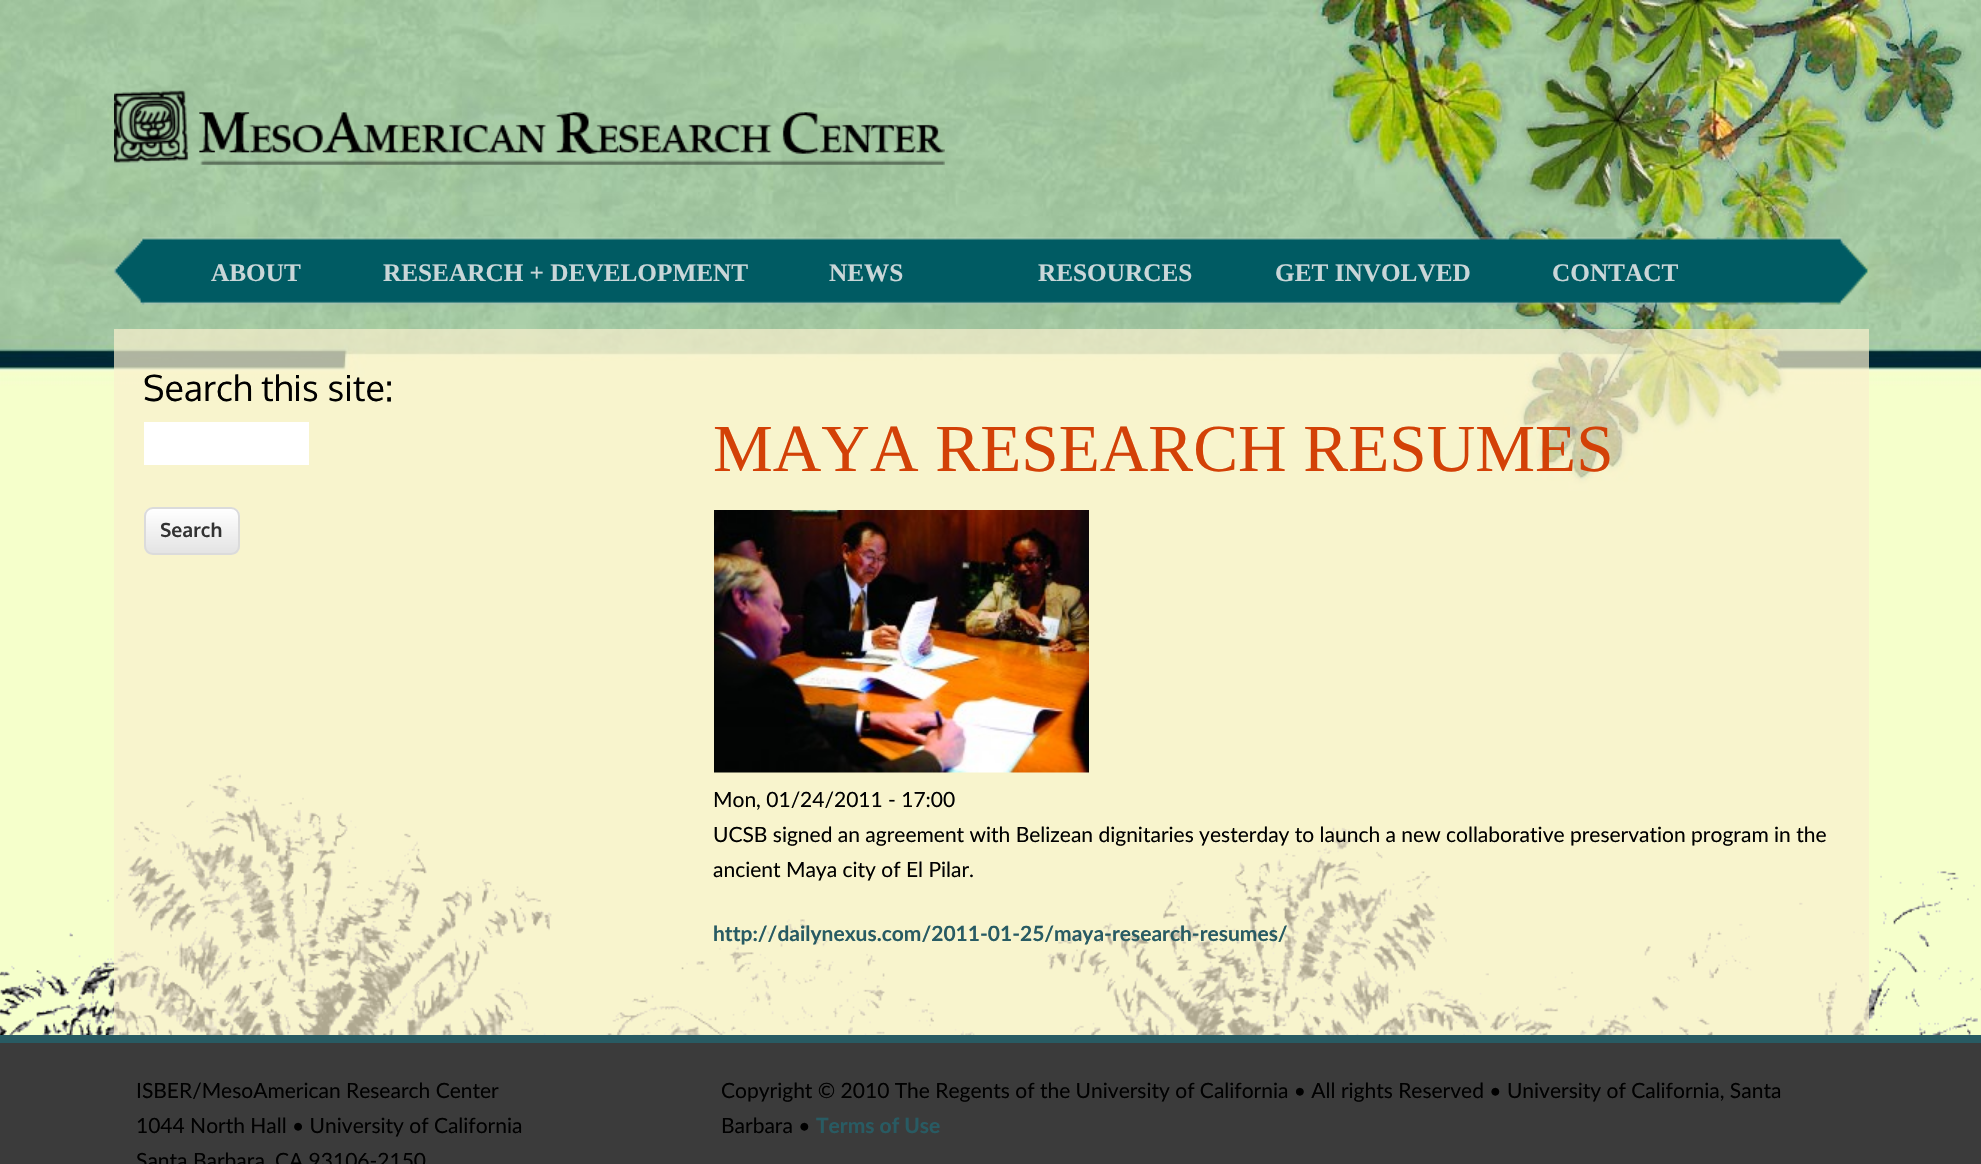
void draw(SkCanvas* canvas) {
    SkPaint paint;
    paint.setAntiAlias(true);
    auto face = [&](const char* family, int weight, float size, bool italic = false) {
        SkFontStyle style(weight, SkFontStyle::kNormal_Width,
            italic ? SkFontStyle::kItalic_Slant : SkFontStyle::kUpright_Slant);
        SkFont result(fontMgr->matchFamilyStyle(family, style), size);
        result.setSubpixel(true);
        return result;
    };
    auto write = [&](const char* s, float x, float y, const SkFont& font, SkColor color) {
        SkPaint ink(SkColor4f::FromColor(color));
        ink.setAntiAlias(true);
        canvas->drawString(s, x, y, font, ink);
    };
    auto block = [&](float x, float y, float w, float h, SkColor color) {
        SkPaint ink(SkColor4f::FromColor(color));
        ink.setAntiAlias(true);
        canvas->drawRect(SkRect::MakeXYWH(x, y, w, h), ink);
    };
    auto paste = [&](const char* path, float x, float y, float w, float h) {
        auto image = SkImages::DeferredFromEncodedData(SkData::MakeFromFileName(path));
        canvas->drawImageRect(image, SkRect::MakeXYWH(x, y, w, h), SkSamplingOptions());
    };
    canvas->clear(SkColorSetRGB(245, 255, 203));
    paste("pic1.png", 0, 0, 1981, 491);
    paste("pic2.png", 0, 774, 1981, 261);
    paste("pic3.png", 114, 90, 831, 75);
    paste("pic4.png", 114, 237, 1755, 68);
    auto kFont1 = face("Liberation Serif", 700, 25.25f);
    write("ABOUT", 211, 281, kFont1, SkColorSetRGB(201, 214, 216));
    write("RESEARCH + DEVELOPMENT", 383, 281, kFont1, SkColorSetRGB(201, 214, 216));
    write("NEWS", 829, 281, kFont1, SkColorSetRGB(201, 214, 216));
    write("RESOURCES", 1038, 281, kFont1, SkColorSetRGB(201, 214, 216));
    write("GET INVOLVED", 1275, 281, kFont1, SkColorSetRGB(201, 214, 216));
    write("CONTACT", 1552, 281, kFont1, SkColorSetRGB(201, 214, 216));
    block(114, 329, 1755, 706, SkColorSetARGB(179, 249, 239, 205));
    auto kFont2 = face("Oxygen", 400, 35.75f);
    write("Search this site:", 143, 401, kFont2, SK_ColorBLACK);
    block(144, 422, 165, 43, SK_ColorWHITE);
    canvas->save();
    canvas->clipPath(SkPathBuilder().moveTo(153, 507).lineTo(231, 507).cubicTo(236, 507, 240, 511, 240, 516).lineTo(240, 546).cubicTo(240, 551, 236, 555, 231, 555).lineTo(153, 555).cubicTo(148, 555, 144, 551, 144, 546).lineTo(144, 516).cubicTo(144, 511, 148, 507, 153, 507).close().detach(), true);
    {
        const SkColor colors[] = {SK_ColorWHITE, SkColorSetRGB(227, 227, 227)};
        const float stops[] = {0, 1};
        const SkPoint ends[] = {{192, 509}, {192, 554}};
        paint.setShader(SkGradientShader::MakeLinear(ends, colors, stops, 2, SkTileMode::kClamp));
        paint.setAlpha(255);
    }
    canvas->drawRect(SkRect::MakeXYWH(144, 509, 96, 45), paint);
    canvas->restore();
    paint.setShader(nullptr);
    paint.setColor(SK_ColorWHITE);
    canvas->drawPath(SkPathBuilder().moveTo(153, 510).lineTo(231, 510).cubicTo(240, 510, 238, 522, 238, 528).lineTo(238, 551).cubicTo(238, 549, 239, 548, 239, 546).lineTo(239, 517).cubicTo(239, 513, 235, 509, 231, 509).lineTo(154, 509).cubicTo(150, 509, 146, 513, 146, 517).lineTo(146, 518).cubicTo(146, 513, 149, 510, 153, 510).close().detach(), paint);
    paint.setStyle(SkPaint::kStroke_Style);
    paint.setStrokeWidth(2);
    paint.setColor(SkColorSetRGB(219, 219, 219));
    canvas->drawRoundRect(SkRect::MakeXYWH(145, 508, 94, 46), 8, 8, paint);
    auto kFont3 = face("Oxygen", 700, 19.5f);
    write("Search", 160, 537, kFont3, SkColorSetRGB(51, 51, 51));
    auto kFont4 = face("Liberation Serif", 400, 67.25f);
    write("MAYA RESEARCH RESUMES", 713, 471, kFont4, SkColorSetRGB(211, 65, 7));
    paste("pic5.png", 714, 510, 375, 263);
    auto kFont5 = face("Lato", 400, 21);
    write("Mon, 01/24/2011 - 17:00", 713, 807, kFont5, SK_ColorBLACK);
    write("UCSB signed an agreement with Belizean dignitaries yesterday to launch a new collaborative preservation program in the", 713, 842, kFont5, SK_ColorBLACK);
    write("ancient Maya city of El Pilar.", 713, 877, kFont5, SK_ColorBLACK);
    auto kFont6 = face("Lato", 700, 21);
    write("http://dailynexus.com/2011-01-25/maya-research-resumes/", 713, 941, kFont6, SkColorSetRGB(40, 91, 99));
    block(0, 1043, 1981, 121, SkColorSetRGB(59, 59, 59));
    block(0, 1035, 1981, 8, SkColorSetRGB(40, 91, 99));
    write("ISBER/MesoAmerican Research Center", 136, 1098, kFont5, SK_ColorBLACK);
    write("1044 North Hall • University of California", 136, 1133, kFont5, SK_ColorBLACK);
    write("Santa Barbara, CA 93106-2150", 136, 1168, kFont5, SK_ColorBLACK);
    write("Copyright © 2010 The Regents of the University of California • All rights Reserved • University of California, Santa", 721, 1098, kFont5, SK_ColorBLACK);
    write("Barbara •", 721, 1133, kFont5, SK_ColorBLACK);
    write("Terms of Use", 816, 1133, kFont6, SkColorSetRGB(40, 91, 99));
}
